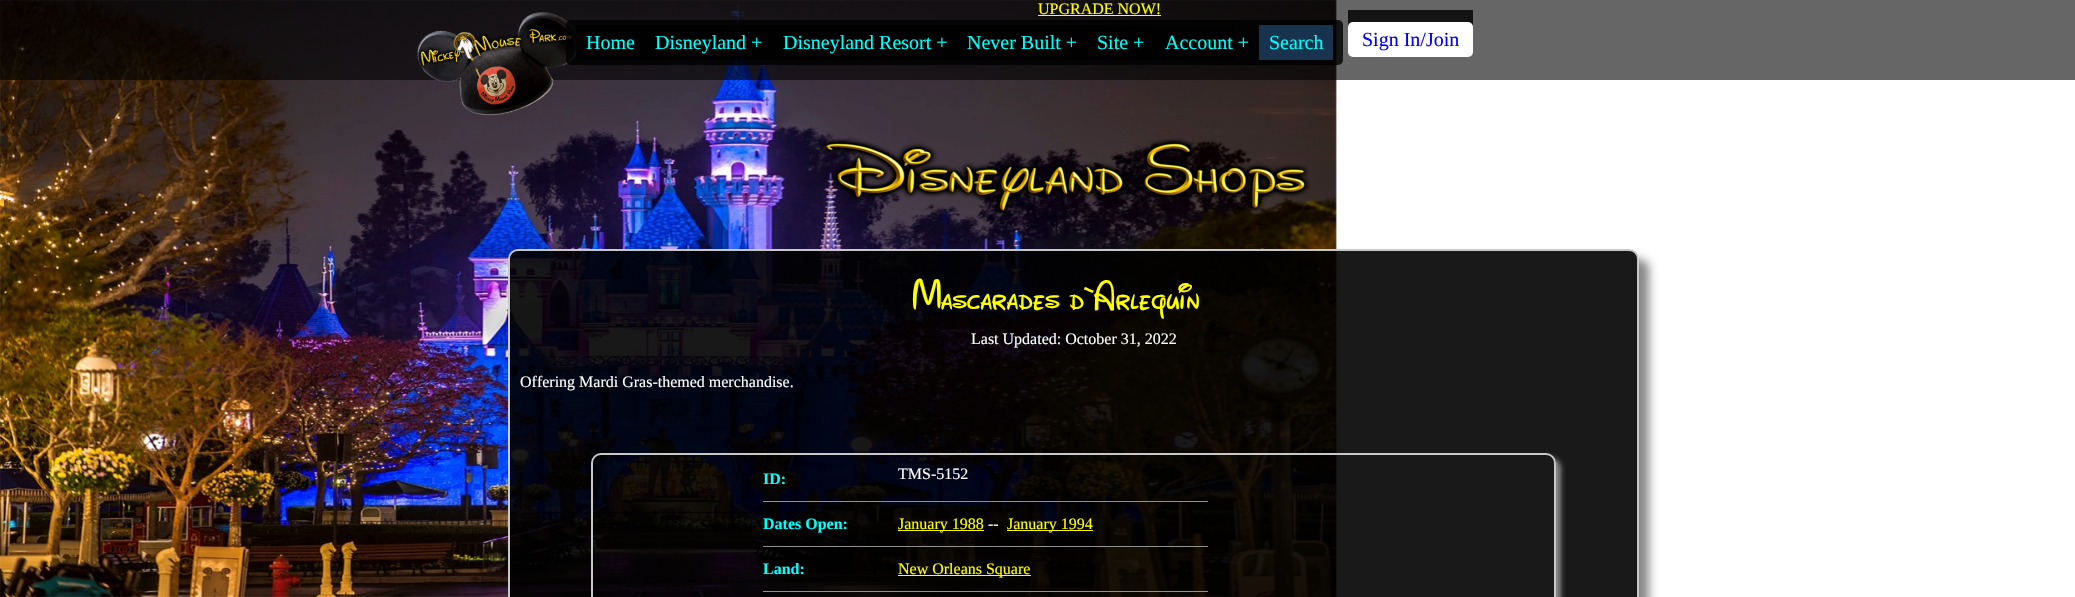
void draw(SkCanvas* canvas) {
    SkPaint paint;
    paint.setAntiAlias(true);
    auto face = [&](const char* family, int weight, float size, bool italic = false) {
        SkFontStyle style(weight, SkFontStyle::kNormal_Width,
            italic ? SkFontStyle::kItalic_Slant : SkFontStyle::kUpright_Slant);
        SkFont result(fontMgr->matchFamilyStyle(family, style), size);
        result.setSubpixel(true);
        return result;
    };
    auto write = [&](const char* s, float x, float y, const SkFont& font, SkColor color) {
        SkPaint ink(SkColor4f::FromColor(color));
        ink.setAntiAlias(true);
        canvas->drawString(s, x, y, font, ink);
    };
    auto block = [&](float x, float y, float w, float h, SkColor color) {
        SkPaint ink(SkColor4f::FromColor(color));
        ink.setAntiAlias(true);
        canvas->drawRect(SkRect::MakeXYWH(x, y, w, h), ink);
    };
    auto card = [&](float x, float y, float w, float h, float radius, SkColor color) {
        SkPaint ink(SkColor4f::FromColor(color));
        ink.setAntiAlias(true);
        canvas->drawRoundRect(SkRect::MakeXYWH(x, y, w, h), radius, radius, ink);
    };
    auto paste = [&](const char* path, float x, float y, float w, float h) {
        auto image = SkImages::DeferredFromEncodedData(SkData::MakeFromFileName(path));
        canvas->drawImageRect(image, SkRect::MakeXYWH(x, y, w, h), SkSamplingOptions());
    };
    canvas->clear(SK_ColorWHITE);
    paste("pic1.png", 0, 0, 1337, 597);
    paste("pic2.png", 1335, 0, 2, 597);
    block(0, 0, 2075, 80, SkColorSetARGB(153, 0, 0, 0));
    auto kFont1 = face("Liberation Serif", 400, 16);
    write("UPGRADE NOW!", 1038, 14, kFont1, SkColorSetRGB(255, 255, 0));
    block(1038, 15, 123, 1, SkColorSetRGB(255, 255, 0));
    paste("pic3.png", 417, 11, 163, 105);
    card(566, 20, 777, 45, 5, SkColorSetARGB(204, 0, 0, 0));
    block(576, 25, 69, 35, SkColorSetARGB(204, 0, 0, 0));
    auto kFont2 = face("Liberation Serif", 400, 20);
    write("Home", 586, 49, kFont2, SkColorSetRGB(0, 255, 255));
    block(645, 25, 128, 35, SkColorSetARGB(204, 0, 0, 0));
    write("Disneyland +", 655, 49, kFont2, SkColorSetRGB(0, 255, 255));
    block(773, 25, 382, 35, SkColorSetRGB(1, 1, 1));
    write("Disneyland Resort +", 783, 49, kFont2, SkColorSetRGB(0, 255, 255));
    write("Never Built +", 967, 49, kFont2, SkColorSetRGB(0, 255, 255));
    write("Site +", 1097, 49, kFont2, SkColorSetRGB(0, 255, 255));
    block(1155, 27, 80, 33, SkColorSetRGB(1, 1, 1));
    write("Account +", 1165, 49, kFont2, SkColorSetRGB(0, 255, 255));
    block(1259, 25, 74, 35, SkColorSetRGB(24, 51, 77));
    write("Search", 1269, 49, kFont2, SkColorSetRGB(0, 255, 255));
    block(1348, 10, 125, 17, SkColorSetRGB(20, 20, 20));
    card(1348, 22, 125, 35, 5, SK_ColorWHITE);
    write("Sign In/Join", 1362, 46, kFont2, SkColorSetRGB(0, 0, 255));
    paste("pic4.png", 821, 137, 490, 78);
    canvas->save();
    canvas->clipPath(SkPathBuilder(SkPathFillType::kEvenOdd).moveTo(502, 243).lineTo(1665, 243).lineTo(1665, 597).lineTo(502, 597).close().moveTo(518, 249).lineTo(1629, 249).cubicTo(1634.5f, 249, 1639, 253.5f, 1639, 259).lineTo(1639, 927).cubicTo(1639, 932.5f, 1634.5f, 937, 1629, 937).lineTo(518, 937).cubicTo(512.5f, 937, 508, 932.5f, 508, 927).lineTo(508, 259).cubicTo(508, 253.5f, 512.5f, 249, 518, 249).close().detach(), true);
    paint.setColor(SkColorSetRGB(136, 136, 136));
    paint.setMaskFilter(SkMaskFilter::MakeBlur(kNormal_SkBlurStyle, 5));
    canvas->drawRoundRect(SkRect::MakeXYWH(518, 259, 1131, 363), 10, 10, paint);
    paint.setMaskFilter(nullptr);
    canvas->restore();
    paint.setColor(SkColorSetARGB(230, 0, 0, 0));
    canvas->drawRoundRect(SkRect::MakeXYWH(509, 250, 1129, 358), 9, 9, paint);
    paint.setStyle(SkPaint::kStroke_Style);
    paint.setStrokeWidth(2);
    paint.setColor(SkColorSetRGB(200, 200, 200));
    canvas->drawRoundRect(SkRect::MakeXYWH(509, 250, 1129, 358), 9, 9, paint);
    auto kFont3 = face("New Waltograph", 400, 40);
    write("Mascarades d`Arlequin", 912, 309, kFont3, SkColorSetRGB(255, 255, 0));
    write("Last Updated: October 31, 2022", 971, 344, kFont1, SK_ColorWHITE);
    write("Offering Mardi Gras-themed merchandise.", 520, 387, kFont1, SK_ColorWHITE);
    canvas->save();
    canvas->clipPath(SkPathBuilder(SkPathFillType::kEvenOdd).moveTo(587, 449).lineTo(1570, 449).lineTo(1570, 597).lineTo(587, 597).close().moveTo(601, 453).lineTo(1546, 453).cubicTo(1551.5f, 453, 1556, 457.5f, 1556, 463).lineTo(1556, 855).cubicTo(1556, 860.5f, 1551.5f, 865, 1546, 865).lineTo(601, 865).cubicTo(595.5f, 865, 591, 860.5f, 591, 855).lineTo(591, 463).cubicTo(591, 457.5f, 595.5f, 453, 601, 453).close().detach(), true);
    paint.setStyle(SkPaint::kFill_Style);
    paint.setColor(SkColorSetRGB(136, 136, 136));
    paint.setMaskFilter(SkMaskFilter::MakeBlur(kNormal_SkBlurStyle, 2.5f));
    canvas->drawRoundRect(SkRect::MakeXYWH(596, 458, 965, 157), 10, 10, paint);
    paint.setMaskFilter(nullptr);
    canvas->restore();
    paint.setStyle(SkPaint::kStroke_Style);
    paint.setColor(SkColorSetRGB(200, 200, 200));
    canvas->drawRoundRect(SkRect::MakeXYWH(592, 454, 963, 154), 9, 9, paint);
    auto kFont4 = face("Liberation Serif", 700, 16);
    write("ID:", 763, 484, kFont4, SkColorSetRGB(0, 255, 255));
    write("TMS-5152", 898, 479, kFont1, SK_ColorWHITE);
    block(763, 501, 445, 1, SkColorSetRGB(145, 145, 145));
    write("Dates Open:", 763, 529, kFont4, SkColorSetRGB(0, 255, 255));
    block(898, 530, 86, 1, SkColorSetRGB(255, 255, 0));
    write("January 1988", 898, 529, kFont1, SkColorSetRGB(255, 255, 0));
    write("--", 988, 529, kFont1, SK_ColorWHITE);
    block(1007, 530, 86, 1, SkColorSetRGB(255, 255, 0));
    write("January 1994", 1007, 529, kFont1, SkColorSetRGB(255, 255, 0));
    block(763, 546, 445, 1, SkColorSetRGB(145, 145, 145));
    write("Land:", 763, 574, kFont4, SkColorSetRGB(0, 255, 255));
    block(898, 575, 133, 1, SkColorSetRGB(255, 255, 0));
    write("New Orleans Square", 898, 574, kFont1, SkColorSetRGB(255, 255, 0));
    block(763, 591, 445, 1, SkColorSetRGB(145, 145, 145));
}
